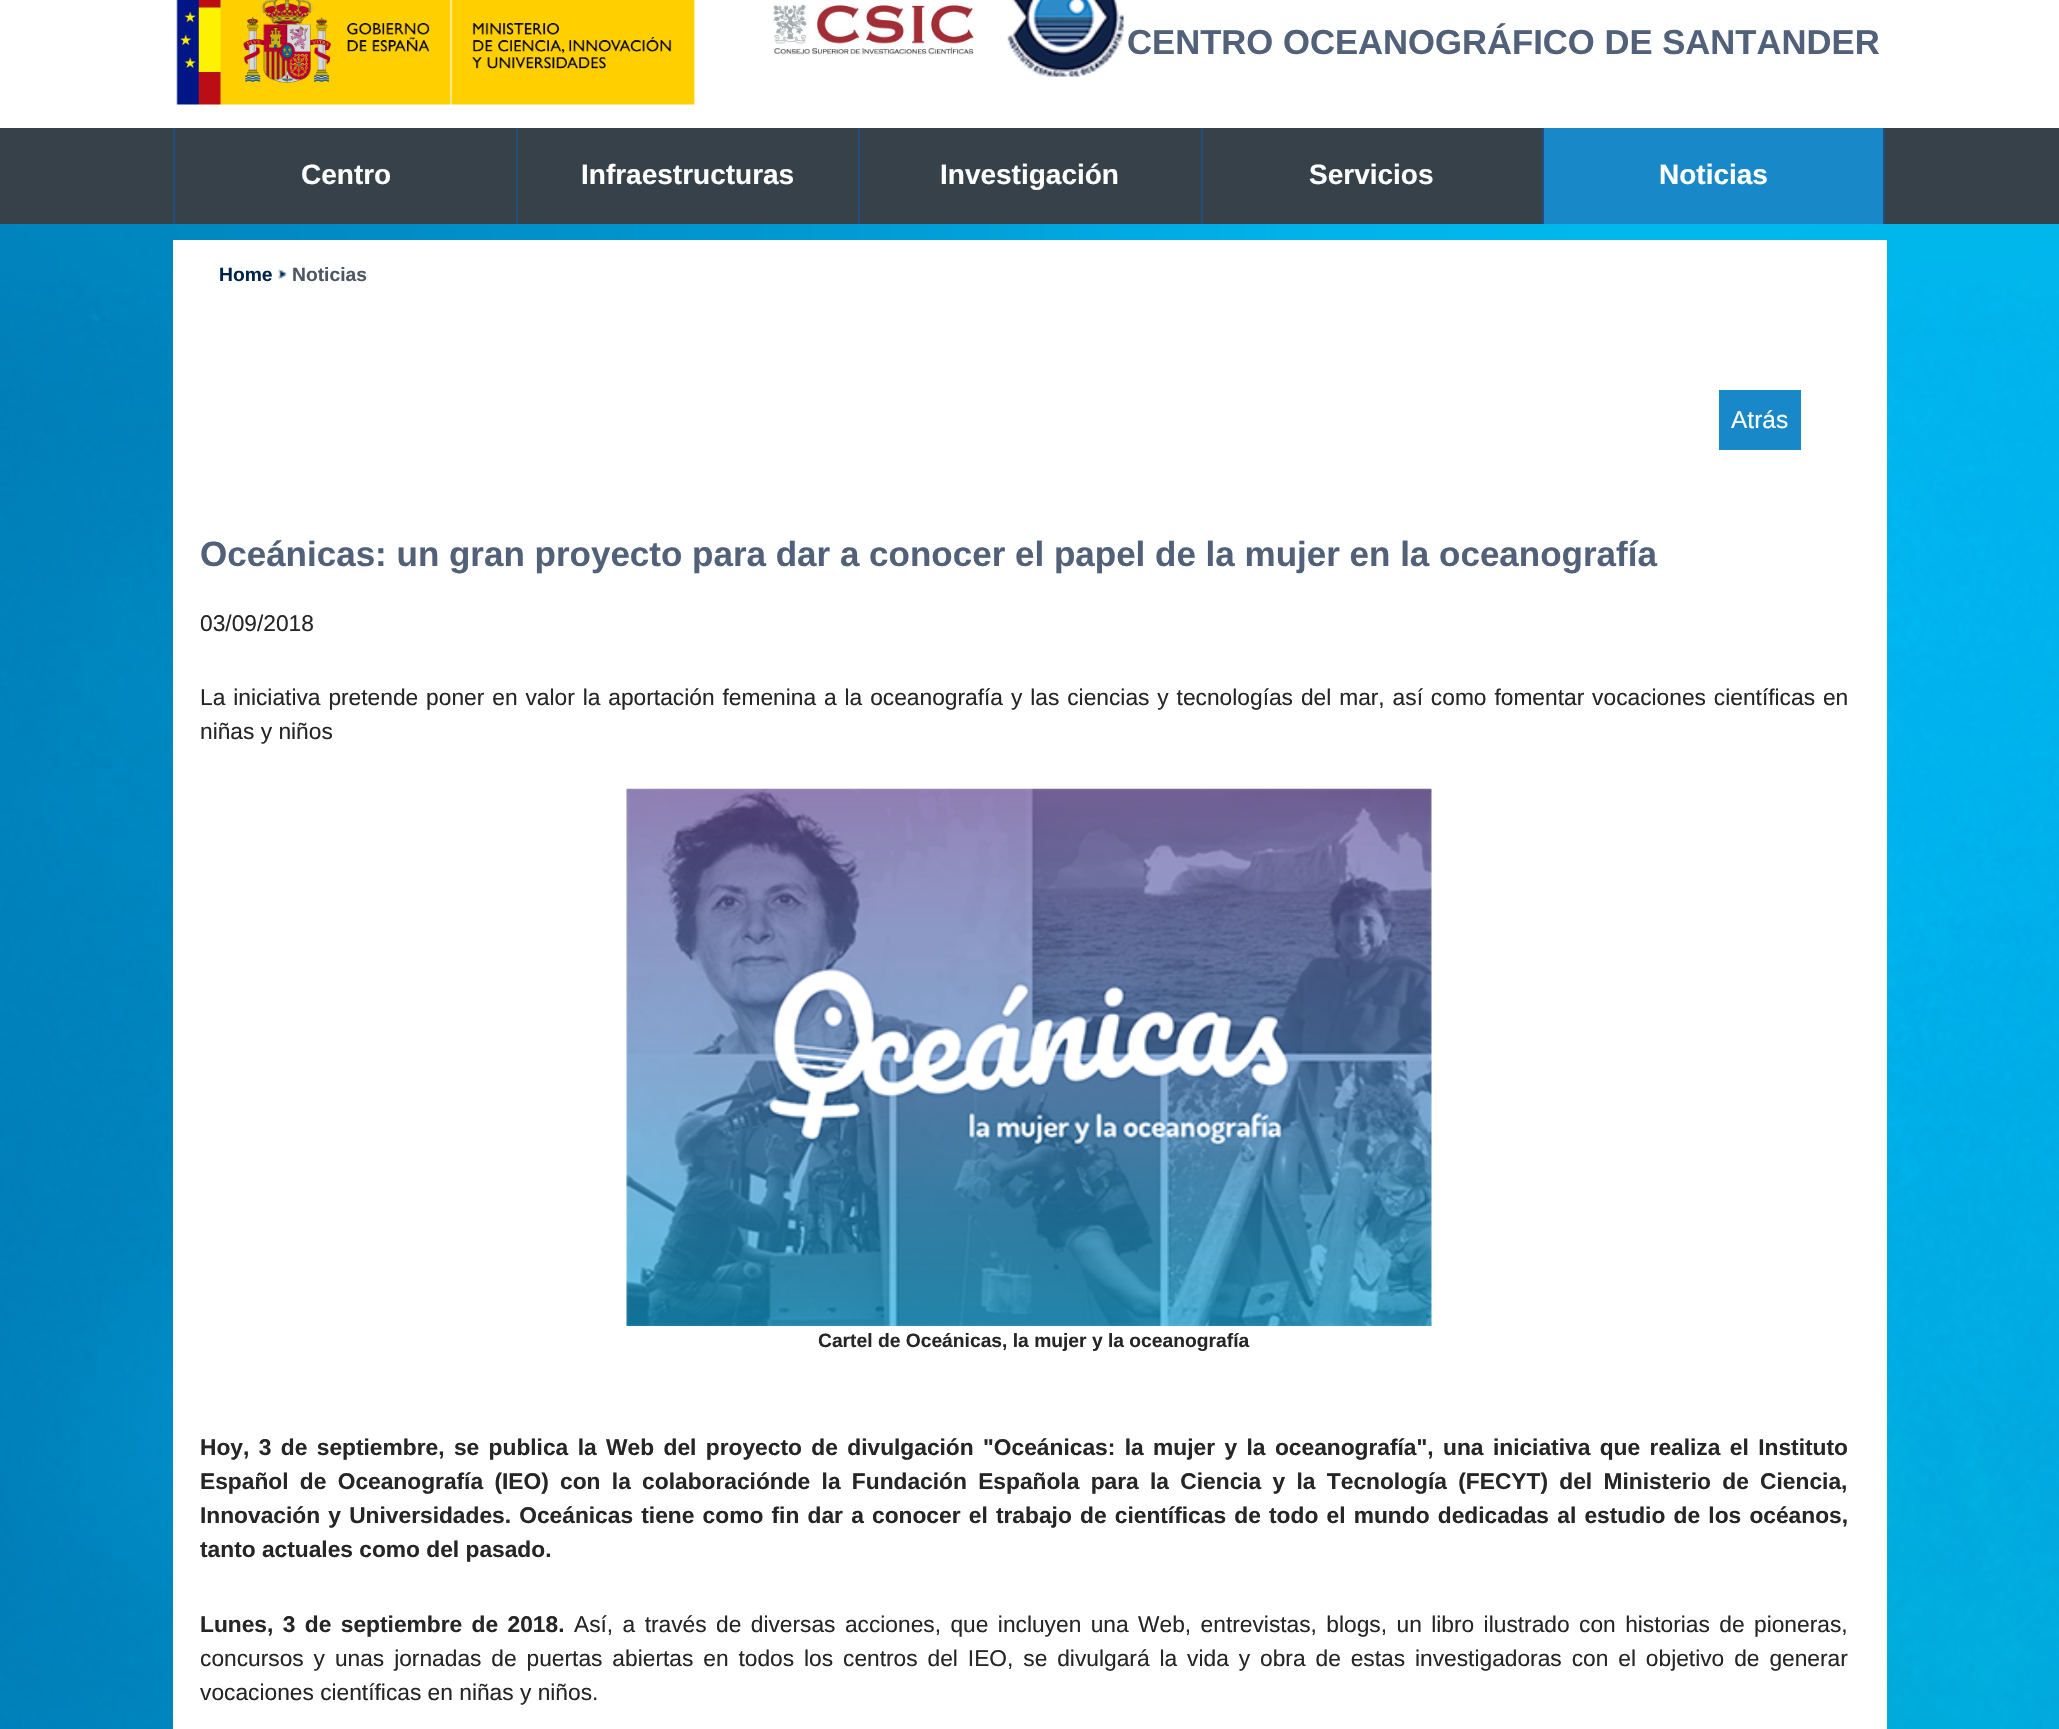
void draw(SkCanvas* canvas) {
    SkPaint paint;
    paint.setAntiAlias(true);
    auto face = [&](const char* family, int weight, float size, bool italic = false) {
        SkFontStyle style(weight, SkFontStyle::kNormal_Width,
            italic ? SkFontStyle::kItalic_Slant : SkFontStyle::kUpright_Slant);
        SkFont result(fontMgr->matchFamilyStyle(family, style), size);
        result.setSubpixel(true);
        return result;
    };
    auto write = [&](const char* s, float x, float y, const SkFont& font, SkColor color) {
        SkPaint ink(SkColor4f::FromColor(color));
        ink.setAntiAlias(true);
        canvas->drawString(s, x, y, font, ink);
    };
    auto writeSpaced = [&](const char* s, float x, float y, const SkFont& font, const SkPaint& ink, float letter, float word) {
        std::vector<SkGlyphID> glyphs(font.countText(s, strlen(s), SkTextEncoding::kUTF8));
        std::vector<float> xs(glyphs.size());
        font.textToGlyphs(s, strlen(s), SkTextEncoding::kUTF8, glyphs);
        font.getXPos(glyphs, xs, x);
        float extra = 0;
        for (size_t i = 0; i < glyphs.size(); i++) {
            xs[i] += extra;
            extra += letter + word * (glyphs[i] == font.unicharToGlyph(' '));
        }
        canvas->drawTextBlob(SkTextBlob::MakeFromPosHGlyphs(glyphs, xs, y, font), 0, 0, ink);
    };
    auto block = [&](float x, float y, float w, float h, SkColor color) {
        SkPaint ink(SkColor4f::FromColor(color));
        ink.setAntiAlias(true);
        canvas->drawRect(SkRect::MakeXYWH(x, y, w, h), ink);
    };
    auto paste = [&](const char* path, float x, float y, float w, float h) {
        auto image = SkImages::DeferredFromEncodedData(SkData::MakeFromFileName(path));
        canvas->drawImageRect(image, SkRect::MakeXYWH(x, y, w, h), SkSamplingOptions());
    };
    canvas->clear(SK_ColorWHITE);
    paste("pic1.png", 0, 224, 2059, 1505);
    paste("pic2.png", 176, 0, 519, 105);
    paste("pic3.png", 773, 3, 202, 52);
    paste("pic4.png", 1007, 0, 117, 77);
    auto kFont1 = face("Liberation Sans", 700, 34.65f);
    write("CENTRO OCEANOGRÁFICO DE SANTANDER", 1127, 54, kFont1, SkColorSetRGB(82, 97, 122));
    block(0, 128, 2059, 96, SkColorSetRGB(54, 65, 73));
    block(516, 128, 2, 96, SkColorSetRGB(33, 78, 122));
    block(173, 128, 2, 96, SkColorSetRGB(33, 78, 122));
    auto kFont2 = face("Liberation Sans", 700, 28);
    write("Centro", 301, 184, kFont2, SK_ColorWHITE);
    block(858, 128, 2, 96, SkColorSetRGB(33, 78, 122));
    write("Infraestructuras", 581, 184, kFont2, SK_ColorWHITE);
    block(1201, 128, 2, 96, SkColorSetRGB(33, 78, 122));
    write("Investigación", 940, 184, kFont2, SK_ColorWHITE);
    block(1542, 128, 2, 96, SkColorSetRGB(33, 78, 122));
    write("Servicios", 1309, 184, kFont2, SK_ColorWHITE);
    block(1544, 128, 339, 96, SkColorSetRGB(24, 136, 200));
    block(1883, 128, 2, 96, SkColorSetRGB(33, 78, 122));
    write("Noticias", 1659, 184, kFont2, SK_ColorWHITE);
    block(173, 240, 1714, 1489, SK_ColorWHITE);
    auto kFont3 = face("Liberation Sans", 700, 19.25f);
    write("Home", 219, 281, kFont3, SkColorSetRGB(0, 36, 71));
    paste("pic5.png", 278, 269, 9, 11);
    write("Noticias", 292, 281, kFont3, SkColorSetRGB(78, 87, 102));
    block(1719, 390, 82, 60, SkColorSetRGB(24, 136, 200));
    auto kFont4 = face("Liberation Sans", 400, 24.5f);
    write("Atrás", 1731, 428, kFont4, SK_ColorWHITE);
    auto kFont5 = face("Liberation Sans", 700, 35);
    write("Oceánicas: un gran proyecto para dar a conocer el papel de la mujer en la oceanografía", 200, 566, kFont5, SkColorSetRGB(82, 97, 122));
    auto kFont6 = face("Liberation Sans", 400, 22.75f);
    write("03/09/2018", 200, 631, kFont6, SkColorSetRGB(38, 38, 38));
    paint.setColor(SkColorSetRGB(38, 38, 38));
    writeSpaced("La iniciativa pretende poner en valor la aportación femenina a la oceanografía y las ciencias y tecnologías del mar, así como fomentar vocaciones científicas en", 200, 705, kFont6, paint, 0, 1.6f);
    write("niñas y niños", 200, 739, kFont6, SkColorSetRGB(38, 38, 38));
    paste("pic6.png", 626, 788, 806, 538);
    write("Cartel de Oceánicas, la mujer y la oceanografía", 818, 1347, kFont3, SkColorSetRGB(38, 38, 38));
    auto kFont7 = face("Liberation Sans", 700, 22.75f);
    writeSpaced("Hoy, 3 de septiembre, se publica la Web del proyecto de divulgación \"Oceánicas: la mujer y la oceanografía\", una iniciativa que realiza el Instituto", 200, 1455, kFont7, paint, 0, 3.1f);
    writeSpaced("Español de Oceanografía (IEO) con la colaboraciónde la Fundación Española para la Ciencia y la Tecnología (FECYT) del Ministerio de Ciencia,", 200, 1489, kFont7, paint, 0, 5);
    writeSpaced("Innovación y Universidades. Oceánicas tiene como fin dar a conocer el trabajo de científicas de todo el mundo dedicadas al estudio de los océanos,", 200, 1523, kFont7, paint, 0, 1.9f);
    write("tanto actuales como del pasado.", 200, 1557, kFont7, SkColorSetRGB(38, 38, 38));
    writeSpaced("Lunes, 3 de septiembre de 2018.", 200, 1632, kFont7, paint, 0, 3.1f);
    writeSpaced("Así, a través de diversas acciones, que incluyen una Web, entrevistas, blogs, un libro ilustrado con historias de pioneras,", 574, 1632, kFont6, paint, 0, 3.1f);
    writeSpaced("concursos y unas jornadas de puertas abiertas en todos los centros del IEO, se divulgará la vida y obra de estas investigadoras con el objetivo de generar", 200, 1666, kFont6, paint, 0, 3.6f);
    write("vocaciones científicas en niñas y niños.", 200, 1700, kFont6, SkColorSetRGB(38, 38, 38));
}
